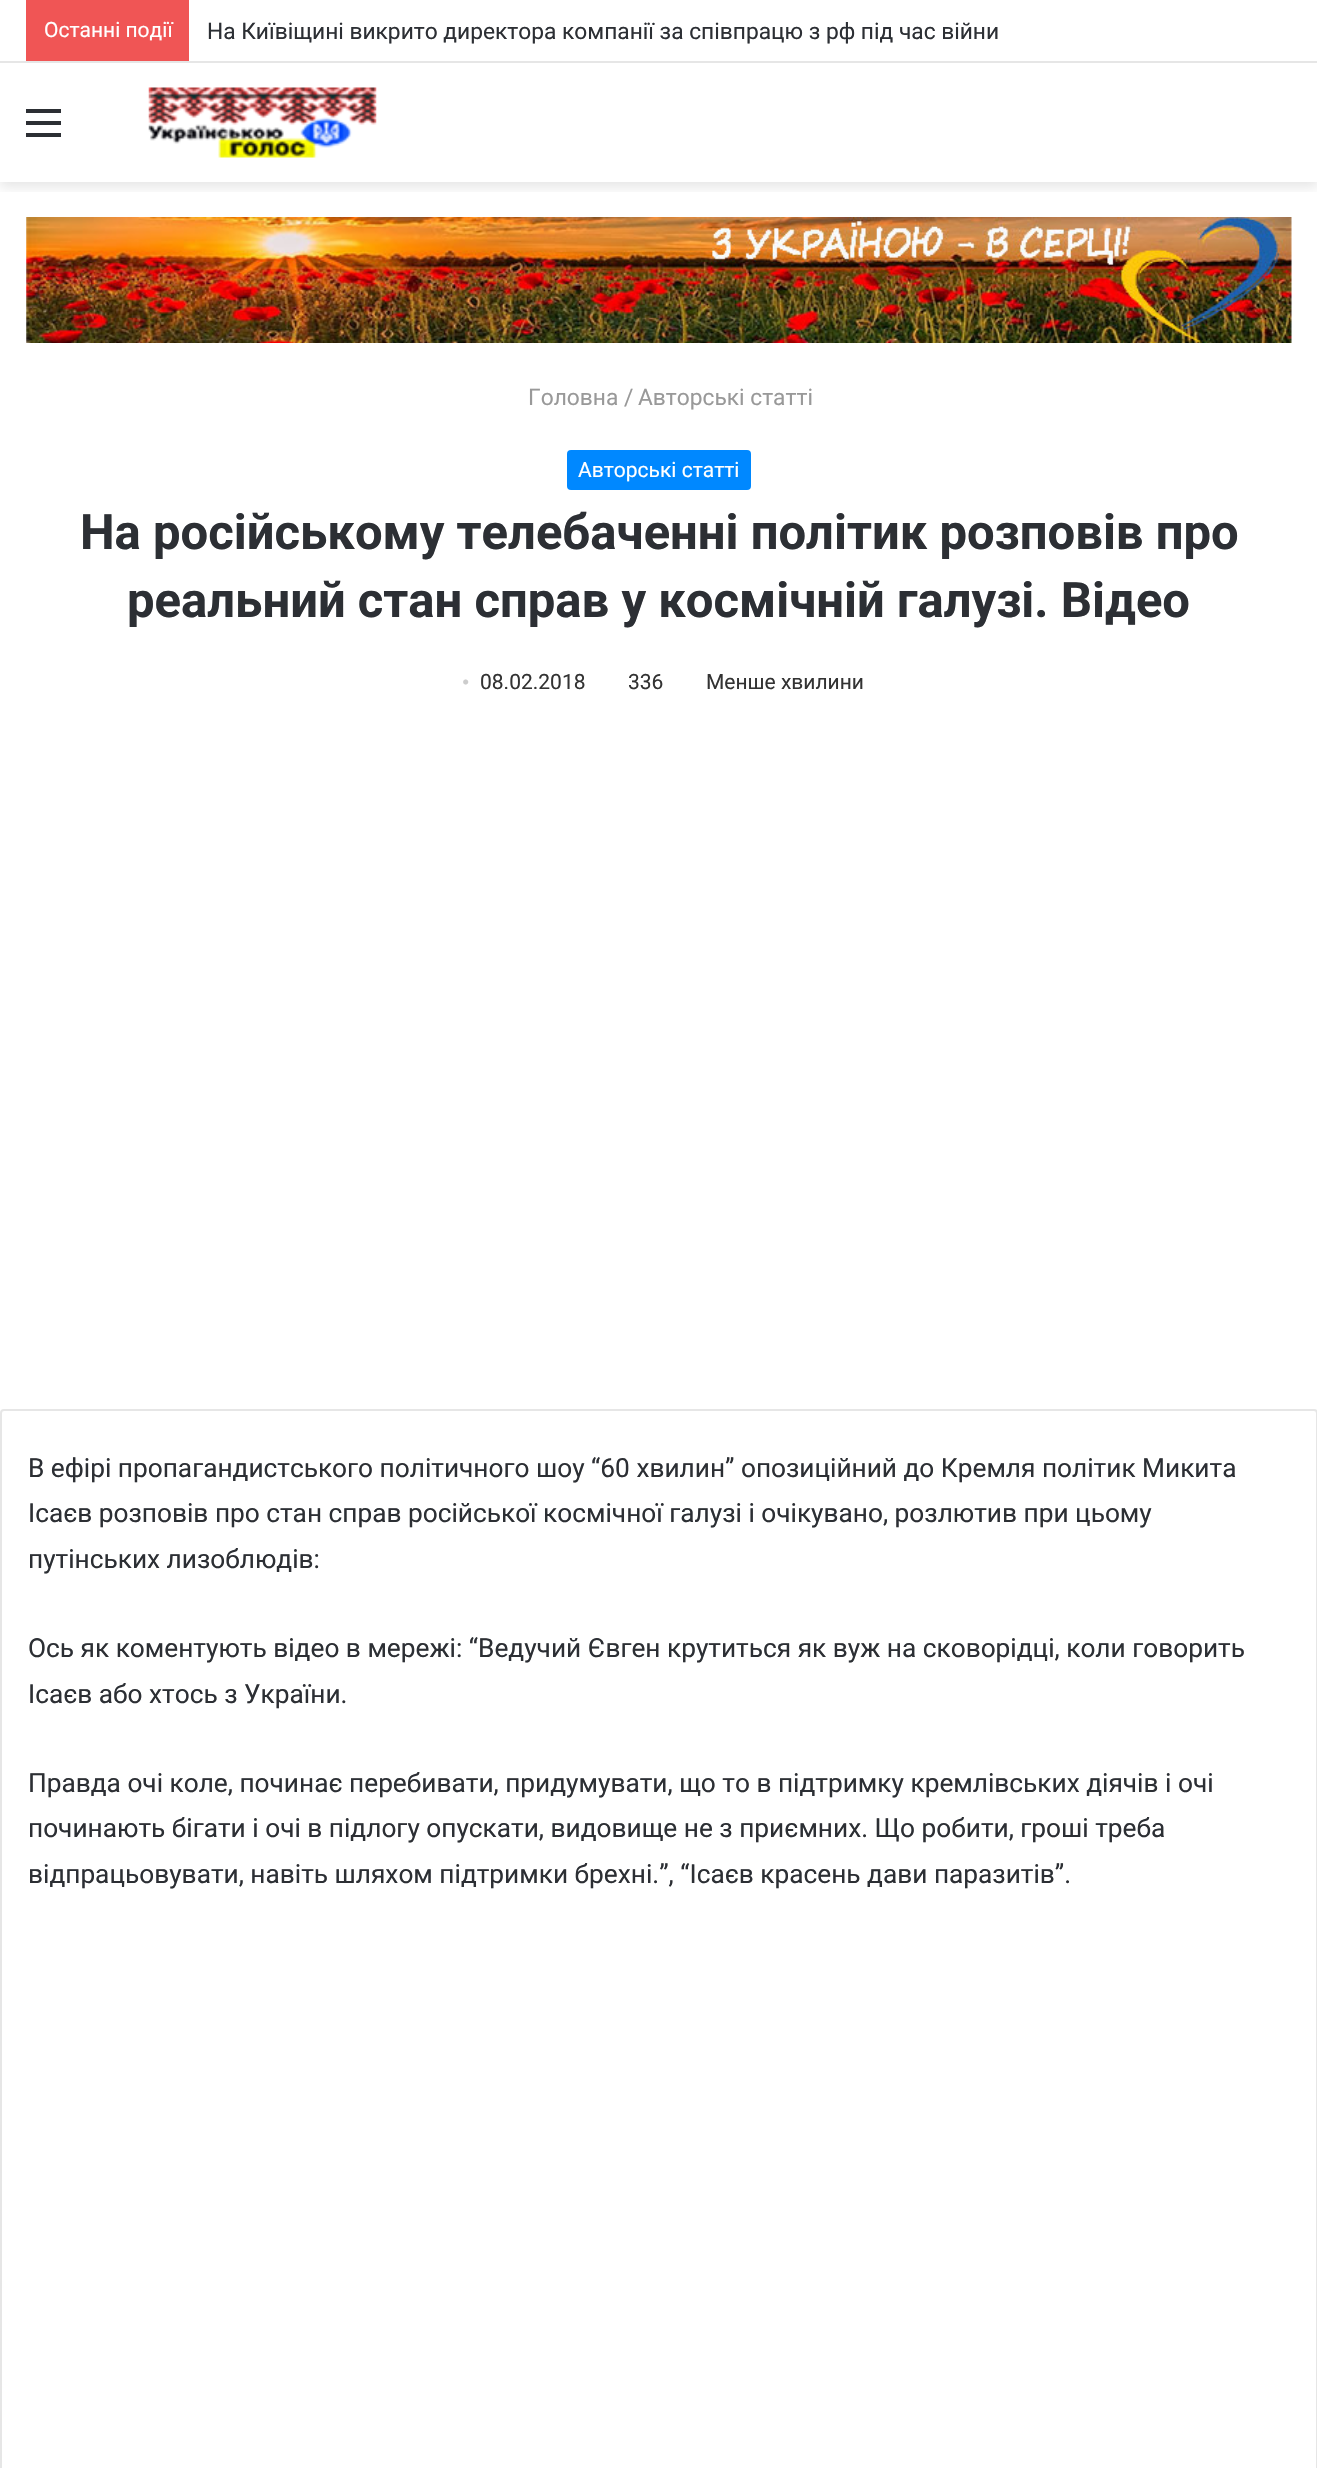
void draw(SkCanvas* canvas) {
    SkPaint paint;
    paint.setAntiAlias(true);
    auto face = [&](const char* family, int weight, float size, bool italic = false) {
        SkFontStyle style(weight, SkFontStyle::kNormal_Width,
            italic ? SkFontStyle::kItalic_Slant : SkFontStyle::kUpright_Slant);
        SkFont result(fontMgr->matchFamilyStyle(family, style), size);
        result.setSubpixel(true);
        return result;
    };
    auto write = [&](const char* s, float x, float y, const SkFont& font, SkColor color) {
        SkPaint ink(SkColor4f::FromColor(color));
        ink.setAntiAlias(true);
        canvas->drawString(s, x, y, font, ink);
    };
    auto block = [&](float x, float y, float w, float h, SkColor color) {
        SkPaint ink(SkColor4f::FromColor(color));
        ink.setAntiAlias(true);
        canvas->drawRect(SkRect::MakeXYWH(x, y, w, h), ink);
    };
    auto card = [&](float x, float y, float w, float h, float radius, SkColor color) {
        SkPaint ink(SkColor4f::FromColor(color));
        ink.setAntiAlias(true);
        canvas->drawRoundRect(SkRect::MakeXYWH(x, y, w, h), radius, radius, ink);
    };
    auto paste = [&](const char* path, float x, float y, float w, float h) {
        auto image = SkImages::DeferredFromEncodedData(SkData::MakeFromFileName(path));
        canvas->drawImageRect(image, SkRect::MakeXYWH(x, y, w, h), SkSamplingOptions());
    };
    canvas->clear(SK_ColorWHITE);
    canvas->save();
    canvas->clipRect(SkRect::MakeXYWH(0, 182, 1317, 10));
    paint.setColor(SkColorSetARGB(26, 0, 0, 0));
    paint.setMaskFilter(SkMaskFilter::MakeBlur(kNormal_SkBlurStyle, 6));
    canvas->drawRect(SkRect::MakeXYWH(0, 68, 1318, 119), paint);
    paint.setMaskFilter(nullptr);
    canvas->restore();
    block(10, 60, 1298, 1, SK_ColorWHITE);
    block(0, 61, 1317, 2, SkColorSetRGB(230, 230, 230));
    block(26, 0, 163, 61, SkColorSetRGB(240, 85, 85));
    auto kFont1 = face("Roboto", 400, 21);
    write("Останні події", 44, 37, kFont1, SK_ColorWHITE);
    auto kFont2 = face("Roboto", 400, 22.75f);
    write("На Київіщині викрито директора компанії за співпрацю з рф під час війни", 207, 39, kFont2, SkColorSetRGB(44, 47, 52));
    block(26, 121, 35, 4, SkColorSetRGB(44, 47, 52));
    block(26, 109, 35, 4, SkColorSetRGB(44, 47, 52));
    block(26, 133, 35, 4, SkColorSetRGB(44, 47, 52));
    paste("pic1.png", 148, 87, 229, 71);
    paste("pic2.png", 26, 217, 1266, 126);
    write("Головна", 528, 405, kFont2, SkColorSetRGB(153, 153, 153));
    write("/", 624, 405, kFont2, SkColorSetRGB(153, 153, 153));
    write("Авторські статті", 638, 405, kFont2, SkColorSetRGB(153, 153, 153));
    card(567, 450, 184, 40, 4, SkColorSetRGB(0, 136, 255));
    write("Авторські статті", 578, 477, kFont1, SK_ColorWHITE);
    auto kFont3 = face("Roboto", 700, 49);
    write("На російському телебаченні політик розповів про", 80, 549, kFont3, SkColorSetRGB(44, 47, 52));
    write("реальний стан справ у космічній галузі. Відео", 127, 617, kFont3, SkColorSetRGB(44, 47, 52));
    auto kFont4 = face("Liberation Serif", 400, 21);
    write("•", 462, 689, kFont4, SkColorSetRGB(204, 204, 204));
    write("08.02.2018", 480, 689, kFont1, SkColorSetRGB(51, 51, 51));
    write("336", 628, 689, kFont1, SkColorSetRGB(51, 51, 51));
    write("Менше хвилини", 706, 689, kFont1, SkColorSetRGB(51, 51, 51));
    paint.setStyle(SkPaint::kStroke_Style);
    paint.setStrokeWidth(2);
    paint.setColor(SkColorSetRGB(230, 230, 230));
    canvas->drawRoundRect(SkRect::MakeXYWH(1, 1410, 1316, 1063), 3, 3, paint);
    auto kFont5 = face("Roboto", 400, 26.25f);
    write("В ефірі пропагандистського політичного шоу “60 хвилин” опозиційний до Кремля політик Микита", 28, 1477, kFont5, SkColorSetRGB(44, 47, 52));
    write("Ісаєв розповів про стан справ російської космічної галузі і очікувано, розлютив при цьому", 28, 1522, kFont5, SkColorSetRGB(44, 47, 52));
    write("путінських лизоблюдів:", 28, 1568, kFont5, SkColorSetRGB(44, 47, 52));
    write("Ось як коментують відео в мережі: “Ведучий Євген крутиться як вуж на сковорідці, коли говорить", 28, 1657, kFont5, SkColorSetRGB(44, 47, 52));
    write("Ісаєв або хтось з України.", 28, 1703, kFont5, SkColorSetRGB(44, 47, 52));
    write("Правда очі коле, починає перебивати, придумувати, що то в підтримку кремлівських діячів і очі", 28, 1792, kFont5, SkColorSetRGB(44, 47, 52));
    write("починають бігати і очі в підлогу опускати, видовище не з приємних. Що робити, гроші треба", 28, 1837, kFont5, SkColorSetRGB(44, 47, 52));
    write("відпрацьовувати, навіть шляхом підтримки брехні.”, “Ісаєв красень дави паразитів”.", 28, 1883, kFont5, SkColorSetRGB(44, 47, 52));
}
